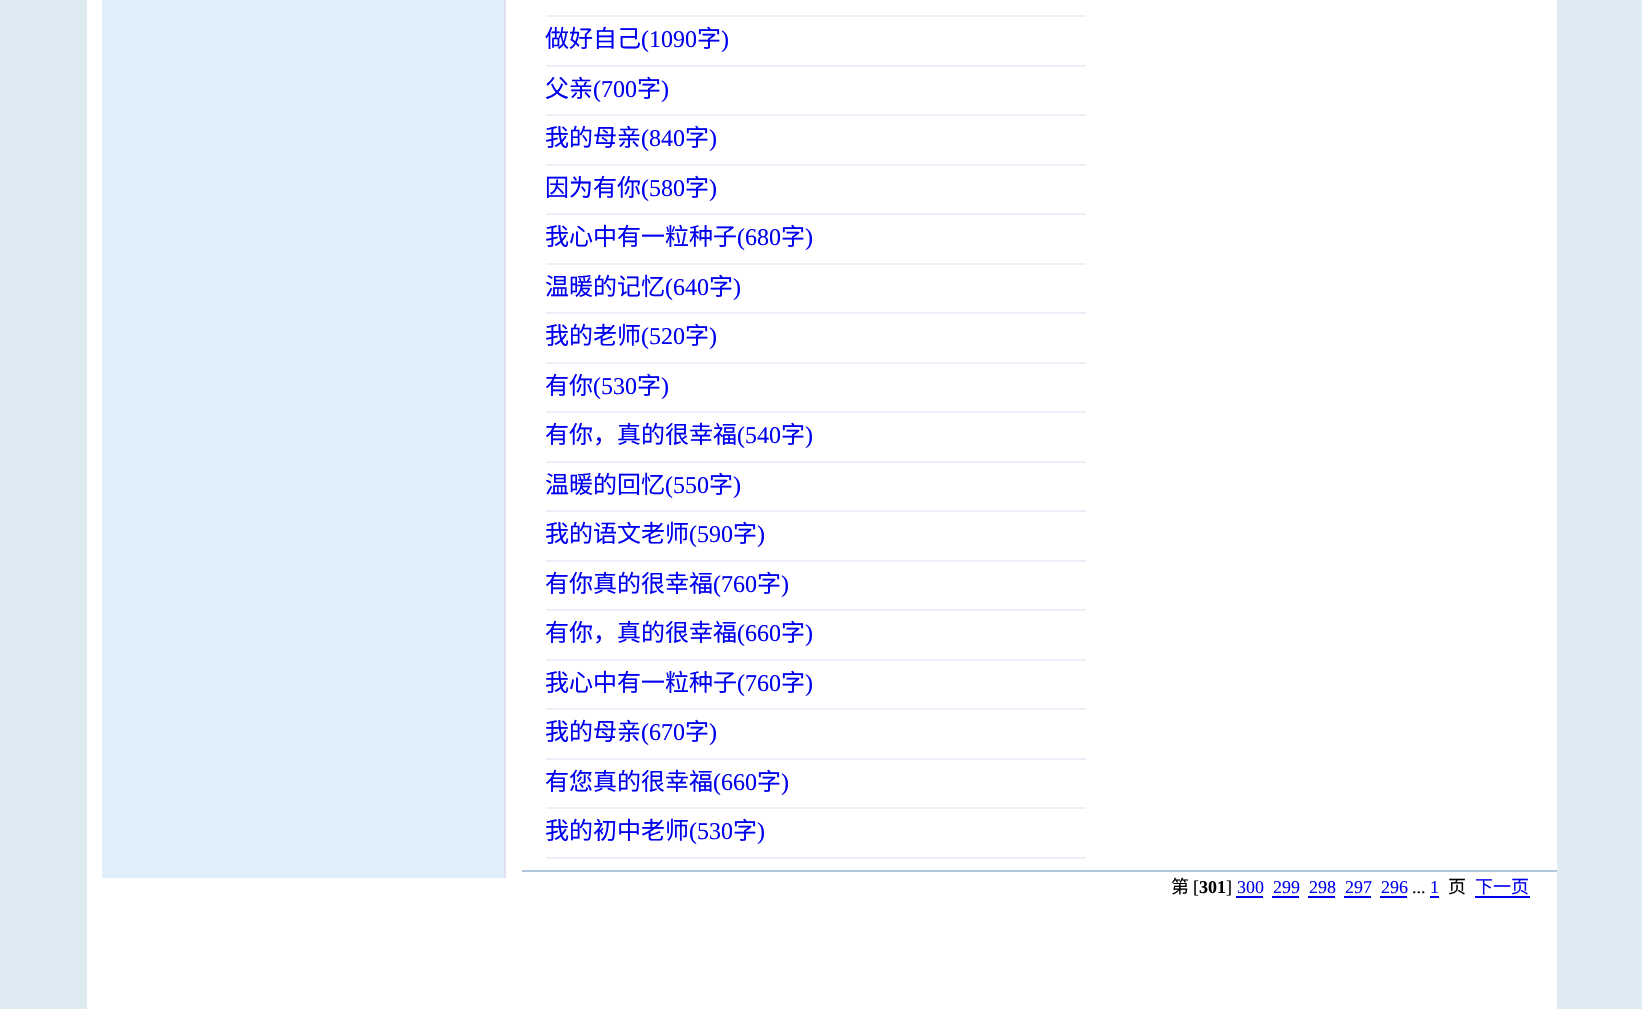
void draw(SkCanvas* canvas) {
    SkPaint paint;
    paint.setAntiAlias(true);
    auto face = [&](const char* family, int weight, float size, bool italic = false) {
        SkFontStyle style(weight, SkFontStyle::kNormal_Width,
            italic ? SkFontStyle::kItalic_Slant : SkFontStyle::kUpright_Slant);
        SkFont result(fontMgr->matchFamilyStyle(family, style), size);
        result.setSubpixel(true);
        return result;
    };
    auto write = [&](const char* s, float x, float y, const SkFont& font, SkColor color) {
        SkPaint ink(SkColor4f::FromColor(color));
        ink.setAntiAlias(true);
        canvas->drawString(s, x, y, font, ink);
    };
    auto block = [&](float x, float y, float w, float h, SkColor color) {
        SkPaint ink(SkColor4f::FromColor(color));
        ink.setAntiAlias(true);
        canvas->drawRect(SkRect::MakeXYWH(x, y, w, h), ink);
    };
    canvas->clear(SkColorSetRGB(222, 235, 243));
    block(87, 0, 1470, 1009, SK_ColorWHITE);
    block(102, 0, 402, 878, SkColorSetRGB(225, 239, 251));
    block(504, 0, 2, 878, SkColorSetRGB(222, 222, 243));
    block(546, 15, 540, 2, SkColorSetRGB(238, 238, 248));
    block(546, 65, 540, 2, SkColorSetRGB(238, 238, 248));
    auto kFont1 = face("Noto Sans CJK SC", 400, 24);
    write("做好自己", 545, 47, kFont1, SkColorSetRGB(0, 0, 238));
    auto kFont2 = face("Liberation Serif", 400, 24);
    write("(1090", 641, 47, kFont2, SkColorSetRGB(0, 0, 238));
    write("字", 697, 47, kFont1, SkColorSetRGB(0, 0, 238));
    write(")", 721, 47, kFont2, SkColorSetRGB(0, 0, 238));
    block(546, 114, 540, 2, SkColorSetRGB(238, 238, 248));
    write("父亲", 545, 97, kFont1, SkColorSetRGB(0, 0, 238));
    write("(700", 593, 97, kFont2, SkColorSetRGB(0, 0, 238));
    write("字", 637, 97, kFont1, SkColorSetRGB(0, 0, 238));
    write(")", 661, 97, kFont2, SkColorSetRGB(0, 0, 238));
    block(546, 164, 540, 2, SkColorSetRGB(238, 238, 248));
    write("我的母亲", 545, 146, kFont1, SkColorSetRGB(0, 0, 238));
    write("(840", 641, 146, kFont2, SkColorSetRGB(0, 0, 238));
    write("字", 685, 146, kFont1, SkColorSetRGB(0, 0, 238));
    write(")", 709, 146, kFont2, SkColorSetRGB(0, 0, 238));
    block(546, 213, 540, 2, SkColorSetRGB(238, 238, 248));
    write("因为有你", 545, 196, kFont1, SkColorSetRGB(0, 0, 238));
    write("(580", 641, 196, kFont2, SkColorSetRGB(0, 0, 238));
    write("字", 685, 196, kFont1, SkColorSetRGB(0, 0, 238));
    write(")", 709, 196, kFont2, SkColorSetRGB(0, 0, 238));
    block(546, 263, 540, 2, SkColorSetRGB(238, 238, 248));
    write("我心中有一粒种子", 545, 245, kFont1, SkColorSetRGB(0, 0, 238));
    write("(680", 737, 245, kFont2, SkColorSetRGB(0, 0, 238));
    write("字", 781, 245, kFont1, SkColorSetRGB(0, 0, 238));
    write(")", 805, 245, kFont2, SkColorSetRGB(0, 0, 238));
    block(546, 312, 540, 2, SkColorSetRGB(238, 238, 248));
    write("温暖的记忆", 545, 295, kFont1, SkColorSetRGB(0, 0, 238));
    write("(640", 665, 295, kFont2, SkColorSetRGB(0, 0, 238));
    write("字", 709, 295, kFont1, SkColorSetRGB(0, 0, 238));
    write(")", 733, 295, kFont2, SkColorSetRGB(0, 0, 238));
    block(546, 362, 540, 2, SkColorSetRGB(238, 238, 248));
    write("我的老师", 545, 344, kFont1, SkColorSetRGB(0, 0, 238));
    write("(520", 641, 344, kFont2, SkColorSetRGB(0, 0, 238));
    write("字", 685, 344, kFont1, SkColorSetRGB(0, 0, 238));
    write(")", 709, 344, kFont2, SkColorSetRGB(0, 0, 238));
    block(546, 411, 540, 2, SkColorSetRGB(238, 238, 248));
    write("有你", 545, 394, kFont1, SkColorSetRGB(0, 0, 238));
    write("(530", 593, 394, kFont2, SkColorSetRGB(0, 0, 238));
    write("字", 637, 394, kFont1, SkColorSetRGB(0, 0, 238));
    write(")", 661, 394, kFont2, SkColorSetRGB(0, 0, 238));
    block(546, 461, 540, 2, SkColorSetRGB(238, 238, 248));
    write("有你，真的很幸福", 545, 443, kFont1, SkColorSetRGB(0, 0, 238));
    write("(540", 737, 443, kFont2, SkColorSetRGB(0, 0, 238));
    write("字", 781, 443, kFont1, SkColorSetRGB(0, 0, 238));
    write(")", 805, 443, kFont2, SkColorSetRGB(0, 0, 238));
    block(546, 510, 540, 2, SkColorSetRGB(238, 238, 248));
    write("温暖的回忆", 545, 493, kFont1, SkColorSetRGB(0, 0, 238));
    write("(550", 665, 493, kFont2, SkColorSetRGB(0, 0, 238));
    write("字", 709, 493, kFont1, SkColorSetRGB(0, 0, 238));
    write(")", 733, 493, kFont2, SkColorSetRGB(0, 0, 238));
    block(546, 560, 540, 2, SkColorSetRGB(238, 238, 248));
    write("我的语文老师", 545, 542, kFont1, SkColorSetRGB(0, 0, 238));
    write("(590", 689, 542, kFont2, SkColorSetRGB(0, 0, 238));
    write("字", 733, 542, kFont1, SkColorSetRGB(0, 0, 238));
    write(")", 757, 542, kFont2, SkColorSetRGB(0, 0, 238));
    block(546, 609, 540, 2, SkColorSetRGB(238, 238, 248));
    write("有你真的很幸福", 545, 592, kFont1, SkColorSetRGB(0, 0, 238));
    write("(760", 713, 592, kFont2, SkColorSetRGB(0, 0, 238));
    write("字", 757, 592, kFont1, SkColorSetRGB(0, 0, 238));
    write(")", 781, 592, kFont2, SkColorSetRGB(0, 0, 238));
    block(546, 659, 540, 2, SkColorSetRGB(238, 238, 248));
    write("有你，真的很幸福", 545, 641, kFont1, SkColorSetRGB(0, 0, 238));
    write("(660", 737, 641, kFont2, SkColorSetRGB(0, 0, 238));
    write("字", 781, 641, kFont1, SkColorSetRGB(0, 0, 238));
    write(")", 805, 641, kFont2, SkColorSetRGB(0, 0, 238));
    block(546, 708, 540, 2, SkColorSetRGB(238, 238, 248));
    write("我心中有一粒种子", 545, 691, kFont1, SkColorSetRGB(0, 0, 238));
    write("(760", 737, 691, kFont2, SkColorSetRGB(0, 0, 238));
    write("字", 781, 691, kFont1, SkColorSetRGB(0, 0, 238));
    write(")", 805, 691, kFont2, SkColorSetRGB(0, 0, 238));
    block(546, 758, 540, 2, SkColorSetRGB(238, 238, 248));
    write("我的母亲", 545, 740, kFont1, SkColorSetRGB(0, 0, 238));
    write("(670", 641, 740, kFont2, SkColorSetRGB(0, 0, 238));
    write("字", 685, 740, kFont1, SkColorSetRGB(0, 0, 238));
    write(")", 709, 740, kFont2, SkColorSetRGB(0, 0, 238));
    block(546, 807, 540, 2, SkColorSetRGB(238, 238, 248));
    write("有您真的很幸福", 545, 790, kFont1, SkColorSetRGB(0, 0, 238));
    write("(660", 713, 790, kFont2, SkColorSetRGB(0, 0, 238));
    write("字", 757, 790, kFont1, SkColorSetRGB(0, 0, 238));
    write(")", 781, 790, kFont2, SkColorSetRGB(0, 0, 238));
    block(546, 857, 540, 2, SkColorSetRGB(238, 238, 248));
    write("我的初中老师", 545, 839, kFont1, SkColorSetRGB(0, 0, 238));
    write("(530", 689, 839, kFont2, SkColorSetRGB(0, 0, 238));
    write("字", 733, 839, kFont1, SkColorSetRGB(0, 0, 238));
    write(")", 757, 839, kFont2, SkColorSetRGB(0, 0, 238));
    block(522, 870, 1035, 2, SkColorSetRGB(176, 199, 221));
    auto kFont3 = face("Noto Sans CJK SC", 400, 18);
    write("第", 1171, 893, kFont3, SK_ColorBLACK);
    auto kFont4 = face("Liberation Serif", 400, 18);
    write("[", 1193, 893, kFont4, SK_ColorBLACK);
    auto kFont5 = face("Liberation Serif", 700, 18);
    write("301", 1199, 893, kFont5, SK_ColorBLACK);
    write("]", 1226, 893, kFont4, SK_ColorBLACK);
    write("300", 1237, 893, kFont4, SkColorSetRGB(0, 0, 238));
    block(1236, 896, 27, 2, SkColorSetRGB(0, 0, 238));
    write("299", 1273, 893, kFont4, SkColorSetRGB(0, 0, 238));
    block(1272, 896, 27, 2, SkColorSetRGB(0, 0, 238));
    write("298", 1309, 893, kFont4, SkColorSetRGB(0, 0, 238));
    block(1308, 896, 27, 2, SkColorSetRGB(0, 0, 238));
    write("297", 1345, 893, kFont4, SkColorSetRGB(0, 0, 238));
    block(1344, 896, 27, 2, SkColorSetRGB(0, 0, 238));
    write("296", 1381, 893, kFont4, SkColorSetRGB(0, 0, 238));
    block(1380, 896, 27, 2, SkColorSetRGB(0, 0, 238));
    write("...", 1412, 893, kFont4, SK_ColorBLACK);
    write("1", 1430, 893, kFont4, SkColorSetRGB(0, 0, 238));
    block(1430, 896, 9, 2, SkColorSetRGB(0, 0, 238));
    write("页", 1448, 893, kFont3, SK_ColorBLACK);
    write("下一页", 1475, 893, kFont3, SkColorSetRGB(0, 0, 238));
    block(1475, 896, 55, 2, SkColorSetRGB(0, 0, 238));
}
